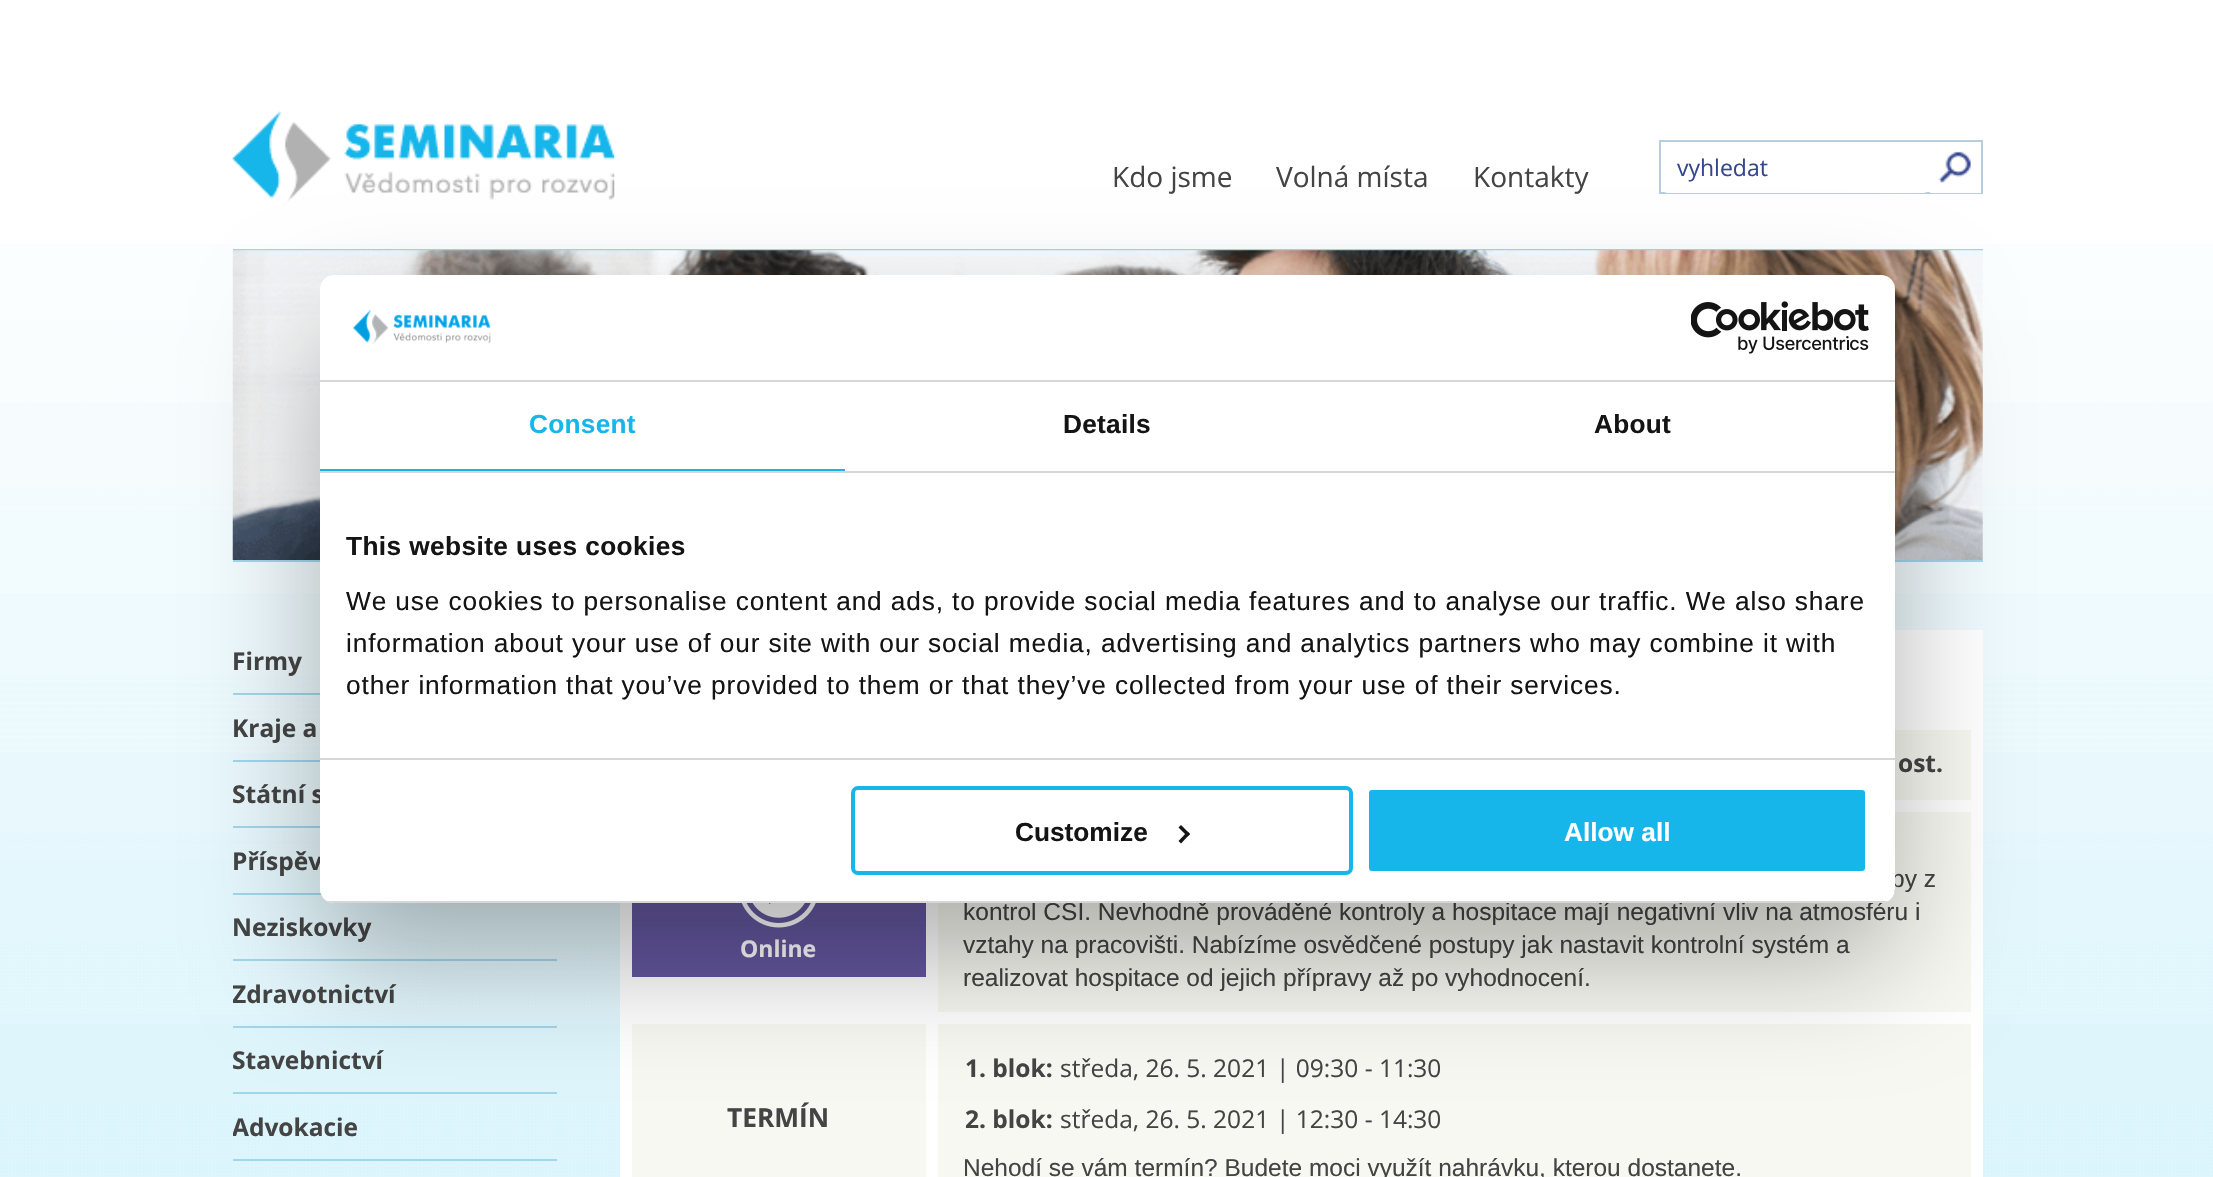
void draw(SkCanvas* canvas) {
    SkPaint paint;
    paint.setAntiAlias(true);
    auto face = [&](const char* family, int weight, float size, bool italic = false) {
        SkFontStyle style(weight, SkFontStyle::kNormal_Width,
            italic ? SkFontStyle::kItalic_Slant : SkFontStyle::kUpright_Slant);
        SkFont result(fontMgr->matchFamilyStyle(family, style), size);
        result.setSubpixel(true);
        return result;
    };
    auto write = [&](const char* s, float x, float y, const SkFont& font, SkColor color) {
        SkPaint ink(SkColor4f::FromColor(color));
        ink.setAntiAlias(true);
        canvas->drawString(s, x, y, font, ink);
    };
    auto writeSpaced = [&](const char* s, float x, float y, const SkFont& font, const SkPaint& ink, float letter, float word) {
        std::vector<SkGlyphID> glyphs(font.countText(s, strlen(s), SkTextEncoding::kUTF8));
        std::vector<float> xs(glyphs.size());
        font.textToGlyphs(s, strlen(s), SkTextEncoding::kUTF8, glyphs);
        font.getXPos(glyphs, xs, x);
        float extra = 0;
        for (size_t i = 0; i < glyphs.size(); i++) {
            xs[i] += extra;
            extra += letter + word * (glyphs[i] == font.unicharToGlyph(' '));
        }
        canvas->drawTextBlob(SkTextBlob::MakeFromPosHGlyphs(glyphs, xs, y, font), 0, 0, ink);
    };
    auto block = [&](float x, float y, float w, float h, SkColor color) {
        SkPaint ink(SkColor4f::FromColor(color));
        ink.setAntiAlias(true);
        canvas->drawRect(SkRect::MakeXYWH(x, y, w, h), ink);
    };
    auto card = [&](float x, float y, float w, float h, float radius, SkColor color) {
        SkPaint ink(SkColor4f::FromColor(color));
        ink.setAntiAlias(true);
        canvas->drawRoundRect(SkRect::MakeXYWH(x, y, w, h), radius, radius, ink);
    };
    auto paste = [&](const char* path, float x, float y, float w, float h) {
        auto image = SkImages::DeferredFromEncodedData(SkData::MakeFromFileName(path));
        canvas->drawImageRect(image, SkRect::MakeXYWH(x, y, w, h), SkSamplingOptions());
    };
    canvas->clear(SK_ColorWHITE);
    paste("pic1.png", 0, 0, 2213, 1177);
    block(233, 249, 1750, 2, SkColorSetRGB(162, 214, 234));
    paste("pic2.png", 232, 111, 383, 94);
    auto kFont1 = face("Open Sans", 400, 28);
    write("Kdo jsme", 1112, 187, kFont1, SkColorSetRGB(68, 68, 68));
    write("Volná místa", 1276, 187, kFont1, SkColorSetRGB(68, 68, 68));
    write("Kontakty", 1473, 187, kFont1, SkColorSetRGB(68, 68, 68));
    paint.setStyle(SkPaint::kStroke_Style);
    paint.setStrokeWidth(2);
    paint.setColor(SkColorSetRGB(185, 206, 221));
    canvas->drawRect(SkRect::MakeXYWH(1660, 141, 322, 52), paint);
    card(1661, 142, 269, 51, 7, SK_ColorWHITE);
    auto kFont2 = face("Open Sans", 400, 23);
    write("vyhledat", 1677, 176, kFont2, SkColorSetRGB(52, 71, 141));
    block(1930, 192, 51, 1, SK_ColorWHITE);
    paste("pic3.png", 1938, 151, 33, 32);
    paste("pic4.png", 232, 250, 1751, 310);
    block(233, 560, 1750, 2, SkColorSetRGB(162, 214, 234));
    auto kFont3 = face("Open Sans", 700, 24.5f);
    write("Firmy", 232, 670, kFont3, SkColorSetRGB(68, 68, 68));
    block(233, 693, 87, 2, SkColorSetRGB(162, 214, 234));
    write("Kraje a", 232, 737, kFont3, SkColorSetRGB(68, 68, 68));
    block(233, 760, 87, 2, SkColorSetRGB(162, 214, 234));
    write("Státní s", 232, 803, kFont3, SkColorSetRGB(68, 68, 68));
    block(233, 826, 87, 2, SkColorSetRGB(162, 214, 234));
    write("Příspěv", 232, 870, kFont3, SkColorSetRGB(68, 68, 68));
    block(233, 893, 89, 2, SkColorSetRGB(162, 214, 234));
    write("Neziskovky", 232, 936, kFont3, SkColorSetRGB(68, 68, 68));
    block(233, 959, 324, 2, SkColorSetRGB(162, 214, 234));
    canvas->save();
    canvas->clipRect(SkRect::MakeXYWH(233, 628, 324, 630));
    write("Zdravotnictví", 232, 1003, kFont3, SkColorSetRGB(68, 68, 68));
    canvas->restore();
    block(233, 1026, 324, 2, SkColorSetRGB(162, 214, 234));
    write("Stavebnictví", 232, 1069, kFont3, SkColorSetRGB(68, 68, 68));
    block(233, 1092, 324, 2, SkColorSetRGB(162, 214, 234));
    canvas->save();
    canvas->clipRect(SkRect::MakeXYWH(233, 628, 324, 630));
    write("Advokacie", 232, 1136, kFont3, SkColorSetRGB(68, 68, 68));
    canvas->restore();
    block(233, 1159, 324, 2, SkColorSetRGB(162, 214, 234));
    block(620, 630, 1363, 547, SK_ColorWHITE);
    block(1895, 730, 76, 70, SkColorSetRGB(247, 248, 241));
    write("ost.", 1898, 772, kFont3, SkColorSetRGB(68, 68, 68));
    block(632, 903, 294, 74, SkColorSetRGB(100, 87, 159));
    paste("pic5.png", 741, 903, 75, 25);
    auto kFont4 = face("Open Sans", 700, 23);
    write("Online", 740, 957, kFont4, SK_ColorWHITE);
    block(938, 812, 1033, 200, SkColorSetRGB(247, 248, 241));
    auto kFont5 = face("Liberation Sans", 400, 24.5f);
    write("py z", 1891, 887, kFont5, SkColorSetRGB(68, 68, 68));
    write("kontrol ČŠI. Nevhodně prováděné kontroly a hospitace mají negativní vliv na atmosféru i", 963, 920, kFont5, SkColorSetRGB(68, 68, 68));
    write("vztahy na pracovišti. Nabízíme osvědčené postupy jak nastavit kontrolní systém a", 963, 953, kFont5, SkColorSetRGB(68, 68, 68));
    write("realizovat hospitace od jejich přípravy až po vyhodnocení.", 963, 986, kFont5, SkColorSetRGB(68, 68, 68));
    block(632, 1024, 294, 153, SkColorSetRGB(247, 248, 241));
    auto kFont6 = face("Open Sans", 700, 26.25f);
    write("TERMÍN", 727, 1127, kFont6, SkColorSetRGB(68, 68, 68));
    block(938, 1024, 1033, 153, SkColorSetRGB(247, 248, 241));
    write("1. blok:", 965, 1077, kFont3, SkColorSetRGB(68, 68, 68));
    auto kFont7 = face("Open Sans", 400, 24.5f);
    write("středa, 26. 5. 2021", 1060, 1077, kFont7, SkColorSetRGB(68, 68, 68));
    write("| 09:30 - 11:30", 1276, 1077, kFont7, SkColorSetRGB(68, 68, 68));
    write("2. blok:", 965, 1128, kFont3, SkColorSetRGB(68, 68, 68));
    write("středa, 26. 5. 2021", 1060, 1128, kFont7, SkColorSetRGB(68, 68, 68));
    write("| 12:30 - 14:30", 1276, 1128, kFont7, SkColorSetRGB(68, 68, 68));
    write("Nehodí se vám termín? Budete moci využít nahrávku, kterou dostanete.", 963, 1176, kFont5, SkColorSetRGB(68, 68, 68));
    paint.setStyle(SkPaint::kFill_Style);
    paint.setColor(SkColorSetARGB(77, 0, 0, 0));
    paint.setMaskFilter(SkMaskFilter::MakeBlur(kNormal_SkBlurStyle, 59.5f));
    canvas->drawRoundRect(SkRect::MakeXYWH(320, 331, 1575, 628), 14, 14, paint);
    paint.setMaskFilter(nullptr);
    card(320, 275, 1575, 628, 14, SK_ColorWHITE);
    block(320, 380, 1575, 2, SkColorSetRGB(214, 214, 214));
    paste("pic6.png", 353, 309, 138, 36);
    paste("pic7.png", 1691, 301, 178, 53);
    block(320, 471, 1575, 2, SkColorSetRGB(214, 214, 214));
    block(320, 469, 525, 2, SkColorSetRGB(22, 182, 235));
    auto kFont8 = face("Liberation Sans", 700, 26.25f);
    paint.setColor(SkColorSetRGB(22, 182, 235));
    writeSpaced("Consent", 529, 433, kFont8, paint, 0.25f, 0);
    paint.setColor(SkColorSetRGB(20, 20, 20));
    writeSpaced("Details", 1063, 433, kFont8, paint, 0.25f, 0);
    writeSpaced("About", 1594, 433, kFont8, paint, 0.25f, 0);
    block(320, 758, 1575, 2, SkColorSetRGB(214, 214, 214));
    writeSpaced("This website uses cookies", 346, 555, kFont8, paint, 0.4f, 0);
    auto kFont9 = face("Liberation Sans", 400, 26.25f);
    writeSpaced("We use cookies to personalise content and ads, to provide social media features and to analyse our traffic. We also share", 346, 610, kFont9, paint, 0.88f, 0);
    writeSpaced("information about your use of our site with our social media, advertising and analytics partners who may combine it with", 346, 652, kFont9, paint, 0.88f, 0);
    writeSpaced("other information that you’ve provided to them or that they’ve collected from your use of their services.", 346, 694, kFont9, paint, 0.88f, 0);
    canvas->save();
    canvas->clipPath(SkPathBuilder().moveTo(334, 275).lineTo(1881, 275).cubicTo(1888.5f, 275, 1895, 281.5f, 1895, 289).lineTo(1895, 889).cubicTo(1895, 896.5f, 1888.5f, 903, 1881, 903).lineTo(334, 903).cubicTo(326.5f, 903, 320, 896.5f, 320, 889).lineTo(320, 289).cubicTo(320, 281.5f, 326.5f, 275, 334, 275).close().detach(), true);
    block(320, 901, 1575, 2, SkColorSetRGB(214, 214, 214));
    canvas->restore();
    paint.setStyle(SkPaint::kStroke_Style);
    paint.setStrokeWidth(4);
    paint.setColor(SkColorSetRGB(22, 182, 235));
    canvas->drawRoundRect(SkRect::MakeXYWH(853, 788, 498, 85), 5, 5, paint);
    write("Customize", 1015, 841, kFont8, SkColorSetRGB(20, 20, 20));
    paint.setStyle(SkPaint::kFill_Style);
    paint.setColor(SkColorSetRGB(20, 20, 20));
    canvas->drawPath(SkPathBuilder().moveTo(1181, 825).lineTo(1190, 834).lineTo(1187.5f, 836.5f).lineTo(1178.5f, 827.5f).close().detach(), paint);
    canvas->drawPath(SkPathBuilder().moveTo(1187.5f, 831.5f).lineTo(1190, 834).lineTo(1181, 843.5f).lineTo(1178.5f, 841).close().detach(), paint);
    paint.setColor(SkColorSetRGB(22, 182, 235));
    canvas->drawRoundRect(SkRect::MakeXYWH(1367, 788, 500, 85), 5, 5, paint);
    paint.setStyle(SkPaint::kStroke_Style);
    paint.setColor(SK_ColorWHITE);
    canvas->drawRoundRect(SkRect::MakeXYWH(1367, 788, 500, 85), 5, 5, paint);
    write("Allow all", 1564, 841, kFont8, SK_ColorWHITE);
}
